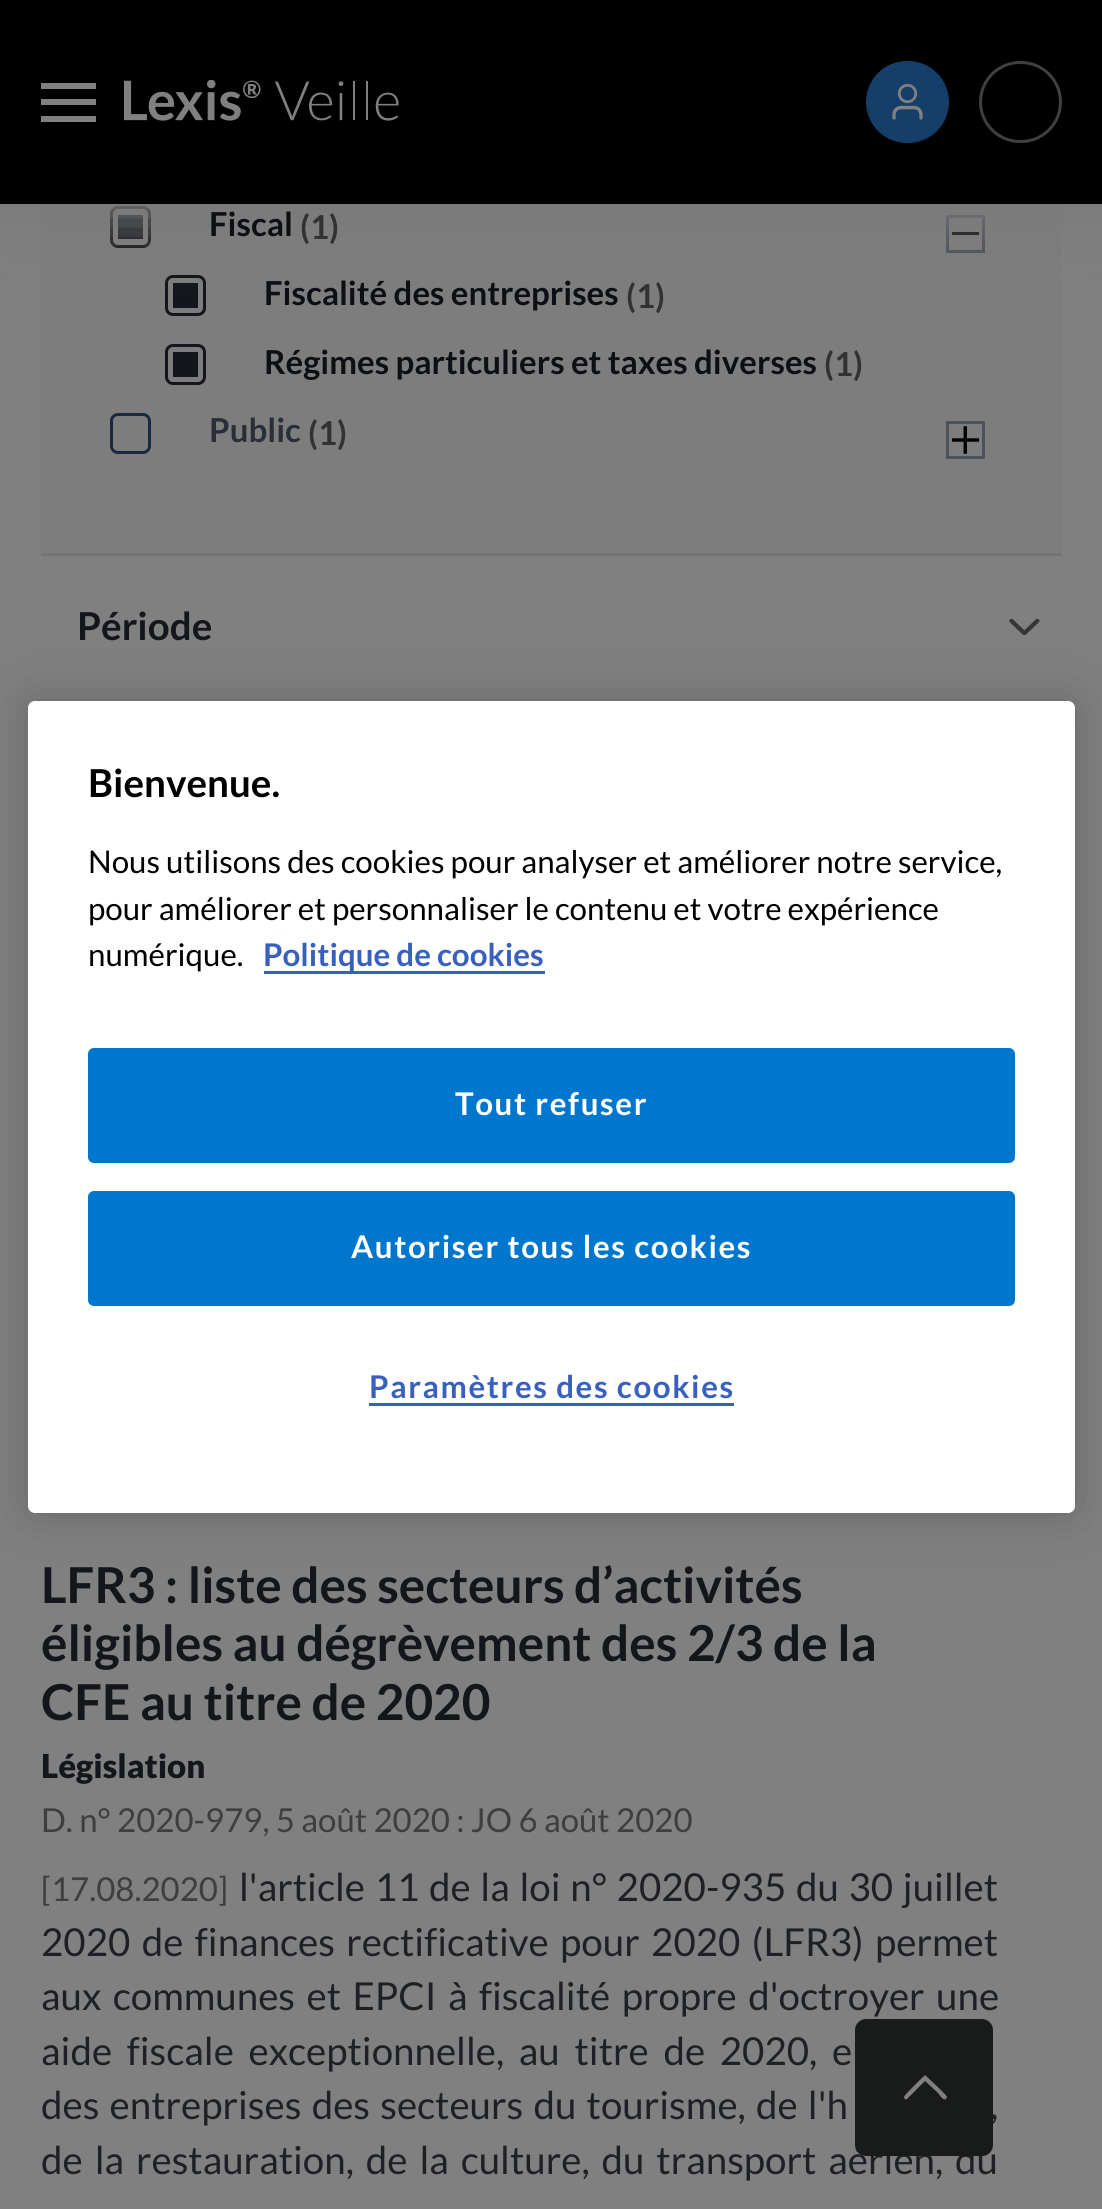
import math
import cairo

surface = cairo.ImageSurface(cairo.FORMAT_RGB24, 1102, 2209)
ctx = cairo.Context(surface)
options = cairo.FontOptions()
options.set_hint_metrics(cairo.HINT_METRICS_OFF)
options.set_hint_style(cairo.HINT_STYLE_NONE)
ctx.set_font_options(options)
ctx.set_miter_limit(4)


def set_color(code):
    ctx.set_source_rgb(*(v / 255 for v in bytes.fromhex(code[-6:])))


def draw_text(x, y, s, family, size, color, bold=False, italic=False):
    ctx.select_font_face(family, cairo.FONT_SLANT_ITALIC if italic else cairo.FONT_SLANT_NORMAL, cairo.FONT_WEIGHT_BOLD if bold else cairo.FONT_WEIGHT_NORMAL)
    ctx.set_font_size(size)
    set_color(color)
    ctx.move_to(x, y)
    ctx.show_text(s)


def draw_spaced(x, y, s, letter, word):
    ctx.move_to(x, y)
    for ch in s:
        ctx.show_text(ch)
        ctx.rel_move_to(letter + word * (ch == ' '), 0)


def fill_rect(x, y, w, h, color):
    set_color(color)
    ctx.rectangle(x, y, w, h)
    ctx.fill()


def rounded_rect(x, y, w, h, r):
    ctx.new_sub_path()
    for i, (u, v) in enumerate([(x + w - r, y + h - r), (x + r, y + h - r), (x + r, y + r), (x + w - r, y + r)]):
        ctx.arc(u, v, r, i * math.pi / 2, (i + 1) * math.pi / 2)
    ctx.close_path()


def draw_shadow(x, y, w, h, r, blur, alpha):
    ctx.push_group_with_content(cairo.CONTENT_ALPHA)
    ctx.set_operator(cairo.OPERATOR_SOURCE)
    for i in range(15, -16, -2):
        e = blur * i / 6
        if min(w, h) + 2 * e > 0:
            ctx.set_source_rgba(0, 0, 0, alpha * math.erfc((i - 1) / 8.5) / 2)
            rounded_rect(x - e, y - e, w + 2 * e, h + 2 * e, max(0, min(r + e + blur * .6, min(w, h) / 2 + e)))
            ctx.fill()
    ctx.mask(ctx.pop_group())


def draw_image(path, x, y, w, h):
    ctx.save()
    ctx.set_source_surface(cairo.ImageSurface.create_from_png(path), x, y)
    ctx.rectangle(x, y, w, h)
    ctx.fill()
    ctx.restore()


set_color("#808080")
ctx.paint()
fill_rect(41, 204, 1021, 349, "#7d7d7d")
rounded_rect(111.5, 207.5, 38, 39, 6.5)
set_color("#13161a")
ctx.set_line_width(3)
ctx.stroke()
fill_rect(118, 215, 25, 24, "#13161a")
fill_rect(952, 232, 27, 3, "#000000")
ctx.rectangle(947.5, 216.5, 36, 35)
set_color("#4b525c")
ctx.stroke()
rounded_rect(166.5, 276.5, 38, 38, 6.5)
set_color("#13161a")
ctx.stroke()
fill_rect(173, 283, 25, 25, "#13161a")
set_color("#7a7a7a")
draw_shadow(0, 19, 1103, 204, 0, 27.5, 1)
fill_rect(0, 0, 1102, 204, "#000000")
draw_image("assets/img1.png", 124, 80, 275, 41)
set_color("#153f68")
rounded_rect(866, 61, 83, 82, 41)
ctx.fill()
draw_image("assets/img2.png", 892, 83, 31, 37)
rounded_rect(980.5, 62.5, 80, 79, 39.5)
set_color("#404040")
ctx.stroke()
fill_rect(41, 83, 55, 6, "#808080")
fill_rect(41, 99, 55, 6, "#808080")
fill_rect(41, 116, 55, 6, "#808080")
draw_text(209, 236, "Fiscal", "Lato", 33, "#0c0f13", bold=True)
draw_text(300, 239, "(1)", "Lato", 33, "#323232", bold=True)
draw_text(264, 305, "Fiscalité des entreprises", "Lato", 33, "#0c0f13", bold=True)
draw_text(626, 308, "(1)", "Lato", 33, "#323232", bold=True)
rounded_rect(166.5, 345.5, 38, 38, 6.5)
set_color("#13161a")
ctx.stroke()
draw_text(264, 374, "Régimes particuliers et taxes diverses", "Lato", 33, "#0c0f13", bold=True)
draw_text(824, 376, "(1)", "Lato", 33, "#323232", bold=True)
fill_rect(173, 352, 25, 25, "#13161a")
rounded_rect(111.5, 414.5, 38, 38, 6.5)
set_color("#19283c")
ctx.stroke()
draw_text(209, 442, "Public", "Lato", 33, "#282f39", bold=True)
draw_text(308, 445, "(1)", "Lato", 33, "#323232", bold=True)
draw_image("assets/img3.png", 952, 426, 27, 28)
ctx.rectangle(947.5, 422.5, 36, 35)
set_color("#4b525c")
ctx.stroke()
fill_rect(41, 553, 1021, 3, "#737477")
draw_text(77, 640, "Période", "Lato", 38.5, "#13161a", bold=True)
draw_image("assets/img4.png", 1009, 619, 31, 16)
draw_text(41, 1603, "LFR3 : liste des secteurs d’activités", "Lato", 49.5, "#13161a", bold=True)
draw_text(41, 1661, "éligibles au dégrèvement des 2/3 de la", "Lato", 49.5, "#13161a", bold=True)
draw_text(41, 1720, "CFE au titre de 2020", "Lato", 49.5, "#13161a", bold=True)
draw_text(41, 1778, "Législation", "Lato Black", 33, "#13161a")
draw_text(41, 1832, "D. n° 2020-979, 5 août 2020 : JO 6 août 2020", "Lato", 33, "#3e3e3e")
draw_text(41, 1901, "[17.08.2020]", "Lato", 33, "#3e3e3e")
ctx.set_font_size(38.5)
set_color("#1d2024")
draw_spaced(239, 1901, "l'article 11 de la loi n° 2020-935 du 30 juillet", 0, 2.25)
draw_spaced(41, 1956, "2020 de finances rectificative pour 2020 (LFR3) permet", 0, 4)
draw_spaced(41, 2010, "aux communes et EPCI à fiscalité propre d'octroyer une", 0, 4)
draw_spaced(41, 2065, "aide fiscale exceptionnelle, au titre de 2020, e", 0, 7.25)
draw_spaced(41, 2119, "des entreprises des secteurs du tourisme, de l'h", 0, 2.75)
draw_spaced(990, 2119, ",", 0, 2.75)
draw_spaced(41, 2174, "de la restauration, de la culture, du transport aérien, du", 0, 4.5)
set_color("#000000")
draw_shadow(28, 701, 1047, 812, 7, 25, 0.2)
set_color("#ffffff")
rounded_rect(28, 701, 1047, 812, 7)
ctx.fill()
draw_text(88, 797, "Bienvenue.", "Lato", 38.5, "#000000", bold=True)
draw_text(88, 873, "Nous utilisons des cookies pour analyser et améliorer notre service,", "Lato", 31.3, "#000000")
draw_text(88, 920, "pour améliorer et personnaliser le contenu et votre expérience", "Lato", 31.3, "#000000")
draw_text(88, 966, "numérique.", "Lato", 31.3, "#000000")
fill_rect(264, 971, 281, 3, "#3860be")
draw_text(263, 966, "Politique de cookies", "Lato", 31.3, "#3860be", bold=True)
set_color("#0077cc")
rounded_rect(89.5, 1049.5, 924, 112, 4.5)
ctx.fill_preserve()
ctx.stroke()
set_color("#ffffff")
draw_spaced(455, 1115, "Tout refuser", 1.6, 0)
set_color("#0077cc")
rounded_rect(89.5, 1192.5, 924, 112, 4.5)
ctx.fill_preserve()
ctx.stroke()
set_color("#ffffff")
draw_spaced(351, 1258, "Autoriser tous les cookies", 1.6, 0)
set_color("#3860be")
draw_spaced(369, 1398, "Paramètres des cookies", 1.6, 0)
fill_rect(369, 1403, 365, 3, "#3860be")
set_color("#191a1a")
rounded_rect(855, 2019, 138, 137, 11)
ctx.fill()
set_color("#808080")
ctx.set_fill_rule(cairo.FILL_RULE_EVEN_ODD)
ctx.new_path()
ctx.move_to(947, 2097)
ctx.curve_to(947, 2095, 928, 2078, 925, 2075)
ctx.curve_to(923, 2077, 904, 2095, 904, 2097)
ctx.curve_to(904, 2099, 906, 2100, 907, 2099)
ctx.line_to(925, 2081)
ctx.line_to(938, 2093)
ctx.curve_to(939, 2094, 943, 2101, 946, 2099)
ctx.close_path()
ctx.fill()
surface.write_to_png("output.png")
